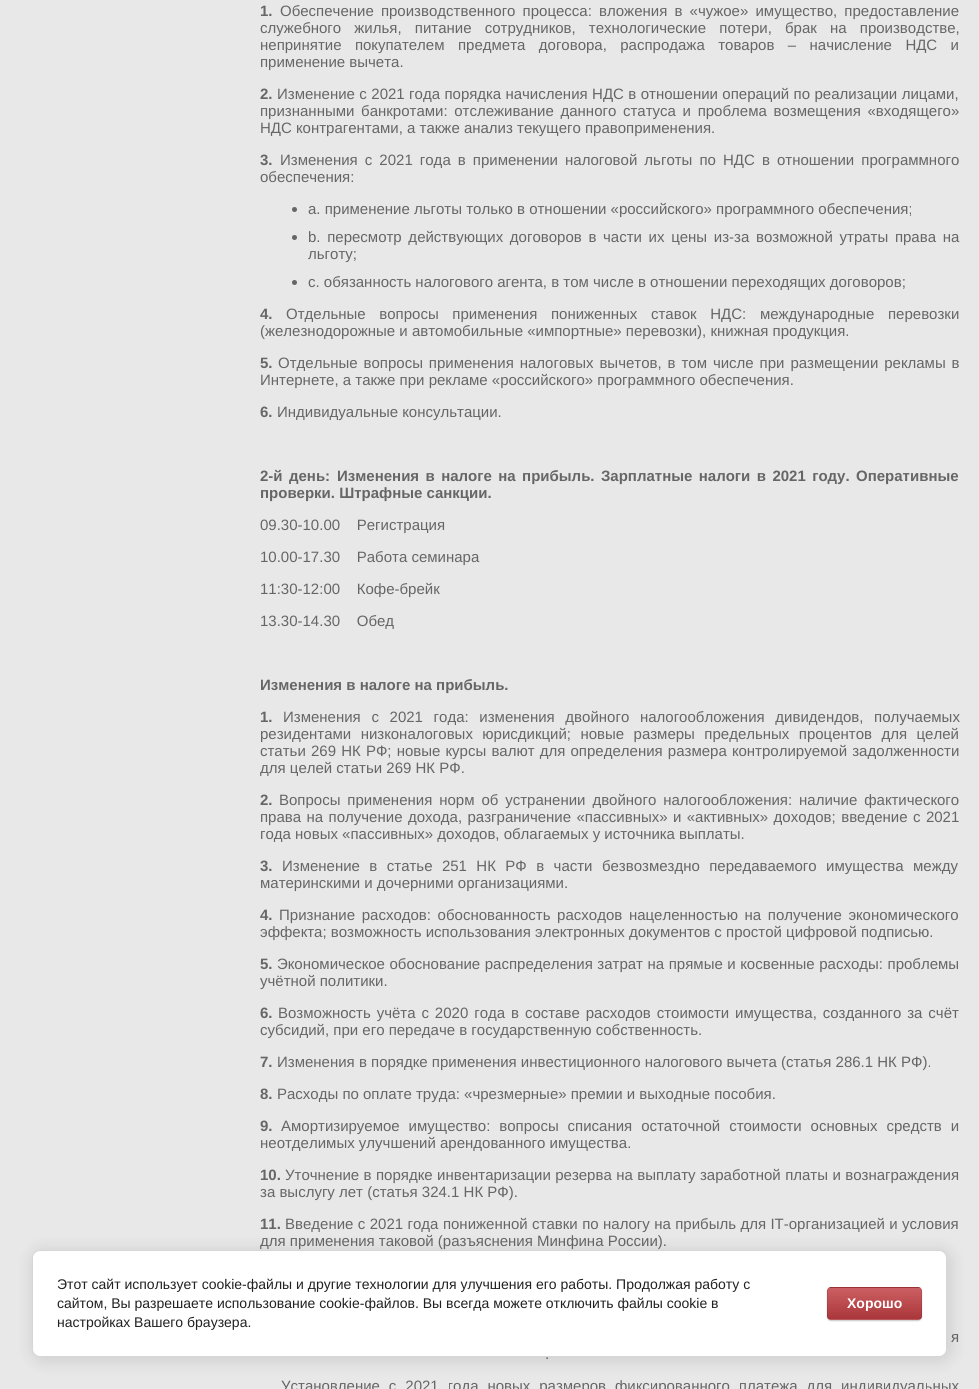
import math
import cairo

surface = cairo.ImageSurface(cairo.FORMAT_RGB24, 979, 1389)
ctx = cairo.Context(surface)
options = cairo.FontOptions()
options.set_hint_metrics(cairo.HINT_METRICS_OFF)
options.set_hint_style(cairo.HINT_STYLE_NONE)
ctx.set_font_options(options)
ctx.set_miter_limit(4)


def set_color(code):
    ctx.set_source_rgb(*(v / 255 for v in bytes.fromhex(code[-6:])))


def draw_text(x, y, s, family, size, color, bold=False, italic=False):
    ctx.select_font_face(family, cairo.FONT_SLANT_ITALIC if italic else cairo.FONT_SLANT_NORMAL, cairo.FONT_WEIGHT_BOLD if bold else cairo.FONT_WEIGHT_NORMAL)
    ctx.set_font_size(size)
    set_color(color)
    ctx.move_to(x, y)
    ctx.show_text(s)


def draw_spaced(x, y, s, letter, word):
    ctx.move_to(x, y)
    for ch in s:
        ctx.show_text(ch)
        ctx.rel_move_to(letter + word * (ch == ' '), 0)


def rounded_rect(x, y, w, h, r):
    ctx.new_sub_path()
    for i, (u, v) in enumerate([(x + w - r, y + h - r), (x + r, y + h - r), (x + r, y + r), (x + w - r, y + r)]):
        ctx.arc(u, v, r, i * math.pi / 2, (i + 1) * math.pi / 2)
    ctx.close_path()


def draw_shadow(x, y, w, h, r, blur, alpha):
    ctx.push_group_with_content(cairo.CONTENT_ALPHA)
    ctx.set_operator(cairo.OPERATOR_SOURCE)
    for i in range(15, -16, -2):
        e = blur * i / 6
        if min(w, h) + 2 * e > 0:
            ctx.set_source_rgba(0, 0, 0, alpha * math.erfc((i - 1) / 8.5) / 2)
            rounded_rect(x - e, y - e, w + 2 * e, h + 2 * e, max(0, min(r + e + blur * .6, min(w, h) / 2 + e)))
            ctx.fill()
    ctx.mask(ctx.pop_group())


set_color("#e8e8e8")
ctx.paint()
draw_text(260, 16, "1.", "Liberation Sans", 15, "#666666", bold=True)
ctx.select_font_face("Liberation Sans")
draw_spaced(280, 16, "Обеспечение производственного процесса: вложения в «чужое» имущество, предоставление", 0, 3)
draw_spaced(260, 33, "служебного жилья, питание сотрудников, технологические потери, брак на производстве,", 0, 9)
draw_spaced(260, 50, "непринятие покупателем предмета договора, распродажа товаров – начисление НДС и", 0, 9.25)
draw_text(260, 67, "применение вычета.", "Liberation Sans", 15, "#666666")
draw_text(260, 99, "2.", "Liberation Sans", 15, "#666666", bold=True)
ctx.select_font_face("Liberation Sans")
draw_spaced(277, 99, "Изменение с 2021 года порядка начисления НДС в отношении операций по реализации лицами,", 0, 0.25)
draw_spaced(260, 116, "признанными банкротами: отслеживание данного статуса и проблема возмещения «входящего»", 0, 2.5)
draw_text(260, 133, "НДС контрагентами, а также анализ текущего правоприменения.", "Liberation Sans", 15, "#666666")
draw_text(260, 165, "3.", "Liberation Sans", 15, "#666666", bold=True)
ctx.select_font_face("Liberation Sans")
draw_spaced(280, 165, "Изменения с 2021 года в применении налоговой льготы по НДС в отношении программного", 0, 2.9)
draw_text(260, 182, "обеспечения:", "Liberation Sans", 15, "#666666")
ctx.new_path()
ctx.arc(294.5, 209.5, 2.5, 0, 2 * math.pi)
ctx.fill()
draw_text(308, 214, "a. применение льготы только в отношении «российского» программного обеспечения;", "Liberation Sans", 15, "#666666")
ctx.new_path()
ctx.arc(294.5, 237.5, 2.5, 0, 2 * math.pi)
ctx.fill()
draw_spaced(308, 242, "b. пересмотр действующих договоров в части их цены из-за возможной утраты права на", 0, 2.5)
draw_text(308, 259, "льготу;", "Liberation Sans", 15, "#666666")
ctx.new_path()
ctx.arc(294.5, 282.5, 2.5, 0, 2 * math.pi)
ctx.fill()
draw_text(308, 287, "c. обязанность налогового агента, в том числе в отношении переходящих договоров;", "Liberation Sans", 15, "#666666")
draw_text(260, 319, "4.", "Liberation Sans", 15, "#666666", bold=True)
ctx.select_font_face("Liberation Sans")
draw_spaced(286, 319, "Отдельные вопросы применения пониженных ставок НДС: международные перевозки", 0, 9.5)
draw_text(260, 336, "(железнодорожные и автомобильные «импортные» перевозки), книжная продукция.", "Liberation Sans", 15, "#666666")
draw_text(260, 368, "5.", "Liberation Sans", 15, "#666666", bold=True)
ctx.select_font_face("Liberation Sans")
draw_spaced(278, 368, "Отдельные вопросы применения налоговых вычетов, в том числе при размещении рекламы в", 0, 1.75)
draw_text(260, 385, "Интернете, а также при рекламе «российского» программного обеспечения.", "Liberation Sans", 15, "#666666")
draw_text(260, 417, "6.", "Liberation Sans", 15, "#666666", bold=True)
draw_text(277, 417, "Индивидуальные консультации.", "Liberation Sans", 15, "#666666")
ctx.select_font_face("Liberation Sans", cairo.FONT_SLANT_NORMAL, cairo.FONT_WEIGHT_BOLD)
draw_spaced(260, 481, "2-й день", 0, 2.25)
draw_text(325, 481, ":", "Liberation Sans", 15, "#666666", bold=True)
draw_spaced(337, 481, "Изменения в налоге на прибыль. Зарплатные налоги в 2021 году. Оперативные", 0, 2.25)
draw_text(260, 498, "проверки. Штрафные санкции.", "Liberation Sans", 15, "#666666", bold=True)
draw_text(260, 530, "09.30-10.00    Регистрация", "Liberation Sans", 15, "#666666")
draw_text(260, 562, "10.00-17.30    Работа семинара", "Liberation Sans", 15, "#666666")
draw_text(260, 594, "11:30-12:00    Кофе-брейк", "Liberation Sans", 15, "#666666")
draw_text(260, 626, "13.30-14.30    Обед", "Liberation Sans", 15, "#666666")
draw_text(260, 690, "Изменения в налоге на прибыль.", "Liberation Sans", 15, "#666666", bold=True)
draw_text(260, 722, "1.", "Liberation Sans", 15, "#666666", bold=True)
ctx.select_font_face("Liberation Sans")
draw_spaced(283, 722, "Изменения с 2021 года: изменения двойного налогообложения дивидендов, получаемых", 0, 6.5)
draw_spaced(260, 739, "резидентами низконалоговых юрисдикций; новые размеры предельных процентов для целей", 0, 5.25)
draw_spaced(260, 756, "статьи 269 НК РФ; новые курсы валют для определения размера контролируемой задолженности", 0, 1)
draw_text(260, 773, "для целей статьи 269 НК РФ.", "Liberation Sans", 15, "#666666")
draw_text(260, 805, "2.", "Liberation Sans", 15, "#666666", bold=True)
ctx.select_font_face("Liberation Sans")
draw_spaced(279, 805, "Вопросы применения норм об устранении двойного налогообложения: наличие фактического", 0, 2.75)
draw_spaced(260, 822, "права на получение дохода, разграничение «пассивных» и «активных» доходов; введение с 2021", 0, 1.25)
draw_text(260, 839, "года новых «пассивных» доходов, облагаемых у источника выплаты.", "Liberation Sans", 15, "#666666")
draw_text(260, 871, "3.", "Liberation Sans", 15, "#666666", bold=True)
ctx.select_font_face("Liberation Sans")
draw_spaced(282, 871, "Изменение в статье 251 НК РФ в части безвозмездно передаваемого имущества между", 0, 5.25)
draw_text(260, 888, "материнскими и дочерними организациями.", "Liberation Sans", 15, "#666666")
draw_text(260, 920, "4.", "Liberation Sans", 15, "#666666", bold=True)
ctx.select_font_face("Liberation Sans")
draw_spaced(279, 920, "Признание расходов: обоснованность расходов нацеленностью на получение экономического", 0, 2.5)
draw_text(260, 937, "эффекта; возможность использования электронных документов с простой цифровой подписью.", "Liberation Sans", 15, "#666666")
draw_text(260, 969, "5.", "Liberation Sans", 15, "#666666", bold=True)
ctx.select_font_face("Liberation Sans")
draw_spaced(277, 969, "Экономическое обоснование распределения затрат на прямые и косвенные расходы: проблемы", 0, 0.4)
draw_text(260, 986, "учётной политики.", "Liberation Sans", 15, "#666666")
draw_text(260, 1018, "6.", "Liberation Sans", 15, "#666666", bold=True)
ctx.select_font_face("Liberation Sans")
draw_spaced(278, 1018, "Возможность учёта с 2020 года в составе расходов стоимости имущества, созданного за счёт", 0, 1.75)
draw_text(260, 1035, "субсидий, при его передаче в государственную собственность.", "Liberation Sans", 15, "#666666")
draw_text(260, 1067, "7.", "Liberation Sans", 15, "#666666", bold=True)
draw_text(277, 1067, "Изменения в порядке применения инвестиционного налогового вычета (статья 286.1 НК РФ).", "Liberation Sans", 15, "#666666")
draw_text(260, 1099, "8.", "Liberation Sans", 15, "#666666", bold=True)
draw_text(277, 1099, "Расходы по оплате труда: «чрезмерные» премии и выходные пособия.", "Liberation Sans", 15, "#666666")
draw_text(260, 1131, "9.", "Liberation Sans", 15, "#666666", bold=True)
ctx.select_font_face("Liberation Sans")
draw_spaced(281, 1131, "Амортизируемое имущество: вопросы списания остаточной стоимости основных средств и", 0, 4.75)
draw_text(260, 1148, "неотделимых улучшений арендованного имущества.", "Liberation Sans", 15, "#666666")
draw_text(260, 1180, "10.", "Liberation Sans", 15, "#666666", bold=True)
ctx.select_font_face("Liberation Sans")
draw_spaced(285, 1180, "Уточнение в порядке инвентаризации резерва на выплату заработной платы и вознаграждения", 0, 0.25)
draw_text(260, 1197, "за выслугу лет (статья 324.1 НК РФ).", "Liberation Sans", 15, "#666666")
draw_text(260, 1229, "11.", "Liberation Sans", 15, "#666666", bold=True)
ctx.select_font_face("Liberation Sans")
draw_spaced(285, 1229, "Введение с 2021 года пониженной ставки по налогу на прибыль для IT-организацией и условия", 0, 0.25)
draw_text(260, 1246, "для применения таковой (разъяснения Минфина России).", "Liberation Sans", 15, "#666666")
draw_spaced(951, 1342, "я", 0, 4)
draw_text(545, 1359, ".", "Liberation Sans", 15, "#666666")
draw_spaced(281, 1391, "Установление с 2021 года новых размеров фиксированного платежа для индивидуальных", 0, 4.75)
set_color("#000000")
draw_shadow(34, 1252, 915, 107, 8, 9, 0.14)
set_color("#ffffff")
rounded_rect(32.5, 1250.5, 914, 106, 7.5)
ctx.fill_preserve()
set_color("#d6d6d6")
ctx.set_line_width(1)
ctx.stroke()
draw_text(57, 1289, "Этот сайт использует cookie-файлы и другие технологии для улучшения его работы. Продолжая работу с", "Liberation Sans", 14, "#212121")
draw_text(57, 1308, "сайтом, Вы разрешаете использование cookie-файлов. Вы всегда можете отключить файлы cookie в", "Liberation Sans", 14, "#212121")
draw_text(57, 1327, "настройках Вашего браузера.", "Liberation Sans", 14, "#212121")
set_color("#000000")
draw_shadow(827, 1288, 95, 33, 4, 0.5, 0.2)
ctx.save()
rounded_rect(827, 1287, 95, 33, 4)
ctx.clip()
gradient = cairo.LinearGradient(875, 1257, 875, 1288)
gradient.add_color_stop_rgba(0, 0.8, 0.373, 0.388, 1)
gradient.add_color_stop_rgba(1, 0.663, 0.212, 0.227, 1)
ctx.set_source(gradient)
ctx.rectangle(827, 1287, 95, 1)
ctx.fill()
gradient = cairo.LinearGradient(875, 1288, 875, 1319)
gradient.add_color_stop_rgba(0, 0.8, 0.373, 0.388, 1)
gradient.add_color_stop_rgba(1, 0.663, 0.212, 0.227, 1)
ctx.set_source(gradient)
ctx.rectangle(827, 1288, 95, 31)
ctx.fill()
gradient = cairo.LinearGradient(875, 1319, 875, 1350)
gradient.add_color_stop_rgba(0, 0.8, 0.373, 0.388, 1)
gradient.add_color_stop_rgba(1, 0.663, 0.212, 0.227, 1)
ctx.set_source(gradient)
ctx.rectangle(827, 1319, 95, 1)
ctx.fill()
ctx.restore()
rounded_rect(827.5, 1287.5, 94, 32, 3.5)
ctx.set_source_rgba(0, 0, 0, 0.1)
ctx.stroke()
draw_text(847, 1308, "Хорошо", "Liberation Sans", 14, "#ffffff", bold=True)
surface.write_to_png("output.png")
